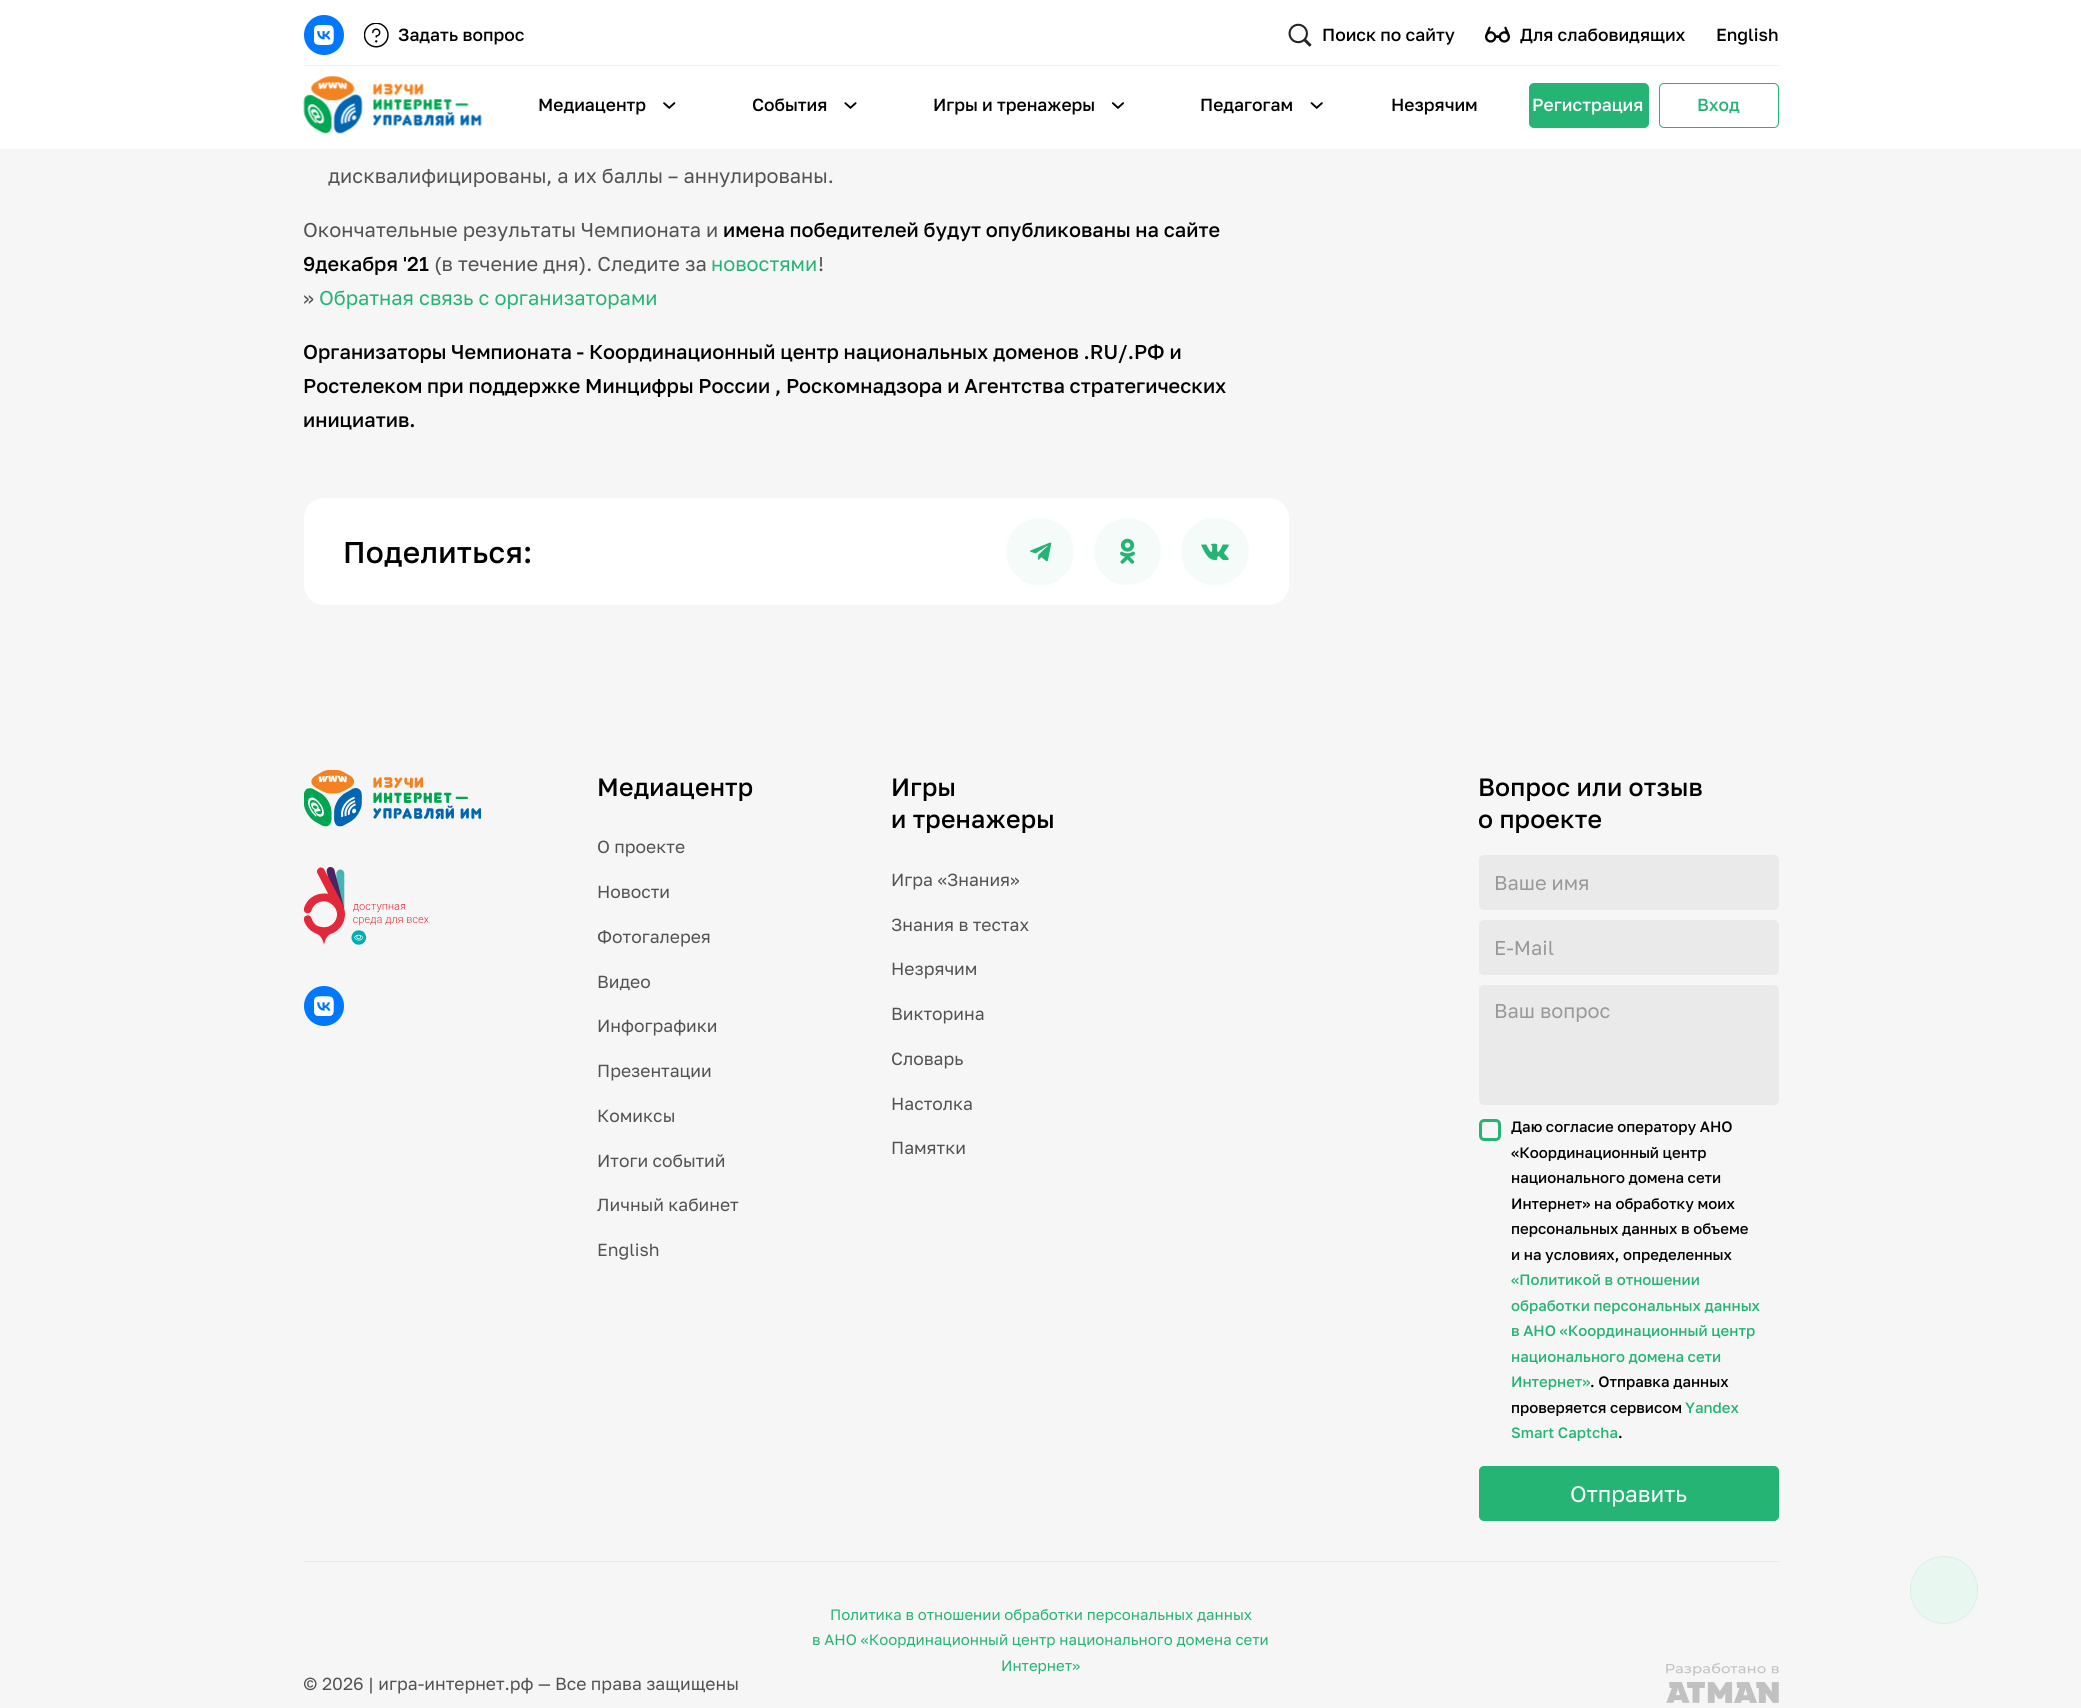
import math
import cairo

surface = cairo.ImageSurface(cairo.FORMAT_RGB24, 2081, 1708)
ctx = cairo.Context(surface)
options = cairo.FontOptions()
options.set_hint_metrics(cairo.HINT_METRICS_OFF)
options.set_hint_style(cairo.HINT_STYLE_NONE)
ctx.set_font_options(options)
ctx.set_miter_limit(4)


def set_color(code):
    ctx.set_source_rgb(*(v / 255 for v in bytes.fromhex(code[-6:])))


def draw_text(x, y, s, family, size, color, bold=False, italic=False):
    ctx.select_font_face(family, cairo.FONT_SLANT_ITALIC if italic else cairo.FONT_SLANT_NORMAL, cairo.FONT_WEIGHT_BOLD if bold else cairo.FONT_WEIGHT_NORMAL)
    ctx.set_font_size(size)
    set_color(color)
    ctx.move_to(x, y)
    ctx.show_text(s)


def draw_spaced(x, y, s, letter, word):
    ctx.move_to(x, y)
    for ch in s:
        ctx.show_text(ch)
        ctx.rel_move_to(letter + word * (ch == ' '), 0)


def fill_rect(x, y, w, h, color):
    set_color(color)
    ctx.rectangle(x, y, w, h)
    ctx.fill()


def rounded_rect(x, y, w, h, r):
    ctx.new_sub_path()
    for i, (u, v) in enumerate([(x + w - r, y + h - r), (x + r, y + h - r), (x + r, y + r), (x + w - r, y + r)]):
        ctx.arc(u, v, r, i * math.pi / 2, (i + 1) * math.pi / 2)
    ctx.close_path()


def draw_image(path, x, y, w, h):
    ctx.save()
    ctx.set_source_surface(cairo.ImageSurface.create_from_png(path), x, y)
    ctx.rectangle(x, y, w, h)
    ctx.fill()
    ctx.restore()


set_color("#f6f6f6")
ctx.paint()
fill_rect(0, 0, 2081, 149, "#ffffff")
fill_rect(304, 65, 1475, 1, "#f2f2f2")
set_color("#0077ff")
ctx.arc(324, 35, 20, 0, 2 * math.pi)
ctx.fill()
draw_image("assets/img1.png", 314, 25, 20, 20)
draw_image("assets/img2.png", 364, 23, 25, 25)
draw_text(398, 41, "Задать вопрос", "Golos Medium", 17.5, "#000000")
draw_image("assets/img3.png", 1288, 23, 24, 24)
draw_text(1322, 41, "Поиск по сайту", "Golos Medium", 17.5, "#000000")
draw_image("assets/img4.png", 1485, 26, 25, 17)
draw_text(1520, 41, "Для слабовидящих", "Golos Medium", 17.5, "#000000")
draw_text(1716, 41, "English", "Golos Medium", 17.5, "#000000")
draw_image("assets/img5.png", 303, 76, 179, 58)
draw_text(538, 111, "Медиацентр", "Golos Medium", 17.5, "#000000")
draw_image("assets/img6.png", 663, 102, 13, 7)
draw_text(752, 111, "События", "Golos Medium", 17.5, "#000000")
draw_image("assets/img7.png", 844, 102, 13, 7)
draw_text(933, 111, "Игры и тренажеры", "Golos Medium", 17.5, "#000000")
draw_image("assets/img8.png", 1111, 102, 13, 7)
draw_text(1200, 111, "Педагогам", "Golos Medium", 17.5, "#000000")
draw_image("assets/img9.png", 1310, 102, 13, 7)
draw_text(1391, 111, "Незрячим", "Golos Medium", 17.5, "#000000")
set_color("#25b474")
rounded_rect(1529.5, 83.5, 119, 44, 4.5)
ctx.fill_preserve()
ctx.set_line_width(1)
ctx.stroke()
draw_text(1532, 111, "Регистрация", "Golos Medium", 17.5, "#ffffff")
rounded_rect(1659.5, 83.5, 119, 44, 4.5)
set_color("#25b474")
ctx.stroke()
draw_text(1697, 111, "Вход", "Golos Medium", 17.5, "#25b474")
draw_text(328, 183, "дисквалифицированы, а их баллы – аннулированы.", "Golos", 20, "#525252")
draw_text(303, 237, "Окончательные результаты Чемпионата и", "Golos", 20, "#525252")
draw_text(723, 237, "имена победителей будут опубликованы на сайте", "Golos Medium", 20, "#000000")
draw_text(303, 271, "9декабря '21", "Golos Medium", 20, "#000000")
draw_text(434, 271, "(в течение дня). Следите за", "Golos", 20, "#525252")
draw_text(711, 271, "новостями", "Golos", 20, "#25b474")
draw_text(818, 271, "!", "Golos", 20, "#525252")
draw_text(303, 305, "»", "Golos", 20, "#525252")
draw_text(319, 305, "Обратная связь с организаторами", "Golos", 20, "#25b474")
draw_text(303, 359, "Организаторы Чемпионата - Координационный центр национальных доменов .RU/.РФ и", "Golos Medium", 20, "#000000")
draw_text(303, 393, "Ростелеком при поддержке Минцифры России , Роскомнадзора и Агентства стратегических", "Golos Medium", 20, "#000000")
draw_text(303, 427, "инициатив.", "Golos Medium", 20, "#000000")
set_color("#ffffff")
rounded_rect(304, 498, 985, 107, 20)
ctx.fill()
ctx.set_font_size(30)
set_color("#000000")
draw_spaced(343, 563, "Поделиться:", 0.25, 0)
set_color("#f4fbf8")
rounded_rect(1006, 518, 68, 67, 33.5)
ctx.fill()
draw_image("assets/img10.png", 1030, 542, 22, 20)
ctx.arc(1127.5, 551.5, 33.5, 0, 2 * math.pi)
ctx.fill()
draw_image("assets/img11.png", 1120, 538, 15, 26)
rounded_rect(1181, 518, 68, 67, 33.5)
ctx.fill()
draw_image("assets/img12.png", 1201, 543, 28, 17)
draw_image("assets/img13.png", 304, 770, 177, 57)
draw_image("assets/img14.png", 304, 867, 125, 78)
set_color("#0077ff")
ctx.arc(324, 1006, 20, 0, 2 * math.pi)
ctx.fill()
draw_image("assets/img15.png", 314, 996, 20, 20)
ctx.set_font_size(25)
set_color("#000000")
draw_spaced(597, 796, "Медиацентр", 0.2, 0)
draw_text(597, 853, "О проекте", "Golos", 17.5, "#525252")
draw_text(597, 898, "Новости", "Golos", 17.5, "#525252")
draw_text(597, 943, "Фотогалерея", "Golos", 17.5, "#525252")
draw_text(597, 988, "Видео", "Golos", 17.5, "#525252")
draw_text(597, 1032, "Инфографики", "Golos", 17.5, "#525252")
draw_text(597, 1077, "Презентации", "Golos", 17.5, "#525252")
draw_text(597, 1122, "Комиксы", "Golos", 17.5, "#525252")
draw_text(597, 1167, "Итоги событий", "Golos", 17.5, "#525252")
draw_text(597, 1211, "Личный кабинет", "Golos", 17.5, "#525252")
draw_text(597, 1256, "English", "Golos", 17.5, "#525252")
ctx.select_font_face("Golos Medium")
ctx.set_font_size(25)
set_color("#000000")
draw_spaced(891, 796, "Игры", 0.2, 0)
draw_spaced(891, 828, "и тренажеры", 0.2, 0)
draw_text(891, 886, "Игра «Знания»", "Golos", 17.5, "#525252")
draw_text(891, 931, "Знания в тестах", "Golos", 17.5, "#525252")
draw_text(891, 975, "Незрячим", "Golos", 17.5, "#525252")
draw_text(891, 1020, "Викторина", "Golos", 17.5, "#525252")
draw_text(891, 1065, "Словарь", "Golos", 17.5, "#525252")
draw_text(891, 1110, "Настолка", "Golos", 17.5, "#525252")
draw_text(891, 1154, "Памятки", "Golos", 17.5, "#525252")
ctx.select_font_face("Golos Medium")
ctx.set_font_size(25)
set_color("#000000")
draw_spaced(1478, 796, "Вопрос или отзыв", 0.2, 0)
draw_spaced(1478, 828, "о проекте", 0.2, 0)
set_color("#eaeaea")
rounded_rect(1479, 855, 300, 55, 5)
ctx.fill()
draw_text(1494, 890, "Ваше имя", "Golos", 20, "#999999")
set_color("#eaeaea")
rounded_rect(1479, 920, 300, 55, 5)
ctx.fill()
draw_text(1494, 955, "E-Mail", "Golos", 20, "#999999")
set_color("#eaeaea")
rounded_rect(1479, 985, 300, 120, 5)
ctx.fill()
draw_text(1494, 1018, "Ваш вопрос", "Golos", 20, "#999999")
rounded_rect(1480.5, 1120.5, 19, 19, 3.5)
set_color("#25b474")
ctx.set_line_width(3)
ctx.stroke()
draw_text(1511, 1132, "Даю согласие оператору АНО", "Golos Medium", 15, "#000000")
draw_text(1511, 1158, "«Координационный центр", "Golos Medium", 15, "#000000")
draw_text(1511, 1183, "национального домена сети", "Golos Medium", 15, "#000000")
draw_text(1511, 1209, "Интернет» на обработку моих", "Golos Medium", 15, "#000000")
draw_text(1511, 1234, "персональных данных в объеме", "Golos Medium", 15, "#000000")
draw_text(1511, 1260, "и на условиях, определенных", "Golos Medium", 15, "#000000")
draw_text(1511, 1285, "«Политикой в отношении", "Golos Medium", 15, "#25b474")
draw_text(1511, 1311, "обработки персональных данных", "Golos Medium", 15, "#25b474")
draw_text(1511, 1336, "в АНО «Координационный центр", "Golos Medium", 15, "#25b474")
draw_text(1511, 1362, "национального домена сети", "Golos Medium", 15, "#25b474")
draw_text(1511, 1387, "Интернет»", "Golos Medium", 15, "#25b474")
draw_text(1590, 1387, ". Отправка данных", "Golos Medium", 15, "#000000")
draw_text(1511, 1413, "проверяется сервисом", "Golos Medium", 15, "#000000")
draw_text(1685, 1413, "Yandex", "Golos Medium", 15, "#25b474")
draw_text(1511, 1438, "Smart Captcha", "Golos Medium", 15, "#25b474")
draw_text(1618, 1438, ".", "Golos Medium", 15, "#000000")
set_color("#25b474")
rounded_rect(1479.5, 1466.5, 299, 54, 4.5)
ctx.fill_preserve()
ctx.set_line_width(1)
ctx.stroke()
draw_text(1570, 1502, "Отправить", "Golos", 22.5, "#ffffff")
fill_rect(304, 1561, 1475, 1, "#eaeaea")
draw_text(830, 1620, "Политика в отношении обработки персональных данных", "Golos", 15, "#25b474")
draw_text(812, 1645, "в АНО «Координационный центр национального домена сети", "Golos", 15, "#25b474")
draw_text(1001, 1671, "Интернет»", "Golos", 15, "#25b474")
draw_text(303, 1690, "© 2026 | игра-интернет.рф — Все права защищены", "Golos", 17.5, "#525252")
draw_image("assets/img16.png", 1666, 1663, 113, 40)
set_color("#e9f7f1")
ctx.arc(1944, 1590, 34, 0, 2 * math.pi)
ctx.fill()
ctx.arc(1944, 1590, 33.5, 0, 2 * math.pi)
ctx.set_source_rgba(0.145, 0.706, 0.455, 0.1)
ctx.stroke()
surface.write_to_png("output.png")
